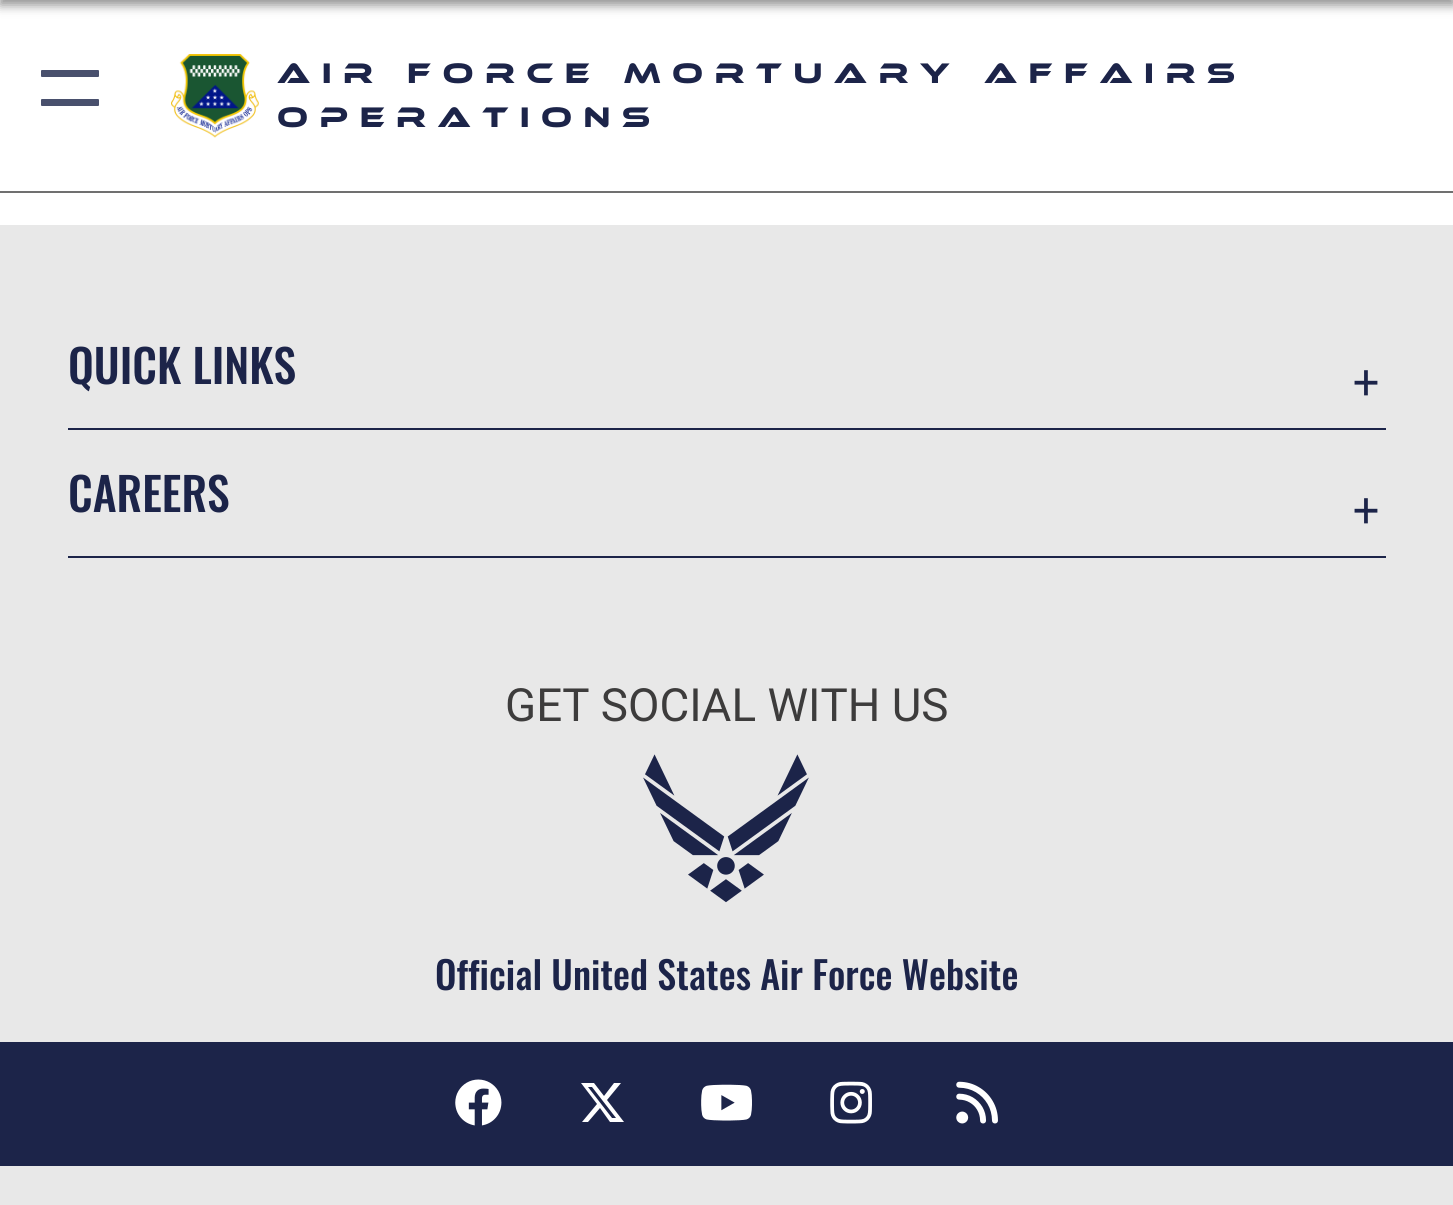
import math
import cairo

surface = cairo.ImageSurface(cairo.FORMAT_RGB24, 1453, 1205)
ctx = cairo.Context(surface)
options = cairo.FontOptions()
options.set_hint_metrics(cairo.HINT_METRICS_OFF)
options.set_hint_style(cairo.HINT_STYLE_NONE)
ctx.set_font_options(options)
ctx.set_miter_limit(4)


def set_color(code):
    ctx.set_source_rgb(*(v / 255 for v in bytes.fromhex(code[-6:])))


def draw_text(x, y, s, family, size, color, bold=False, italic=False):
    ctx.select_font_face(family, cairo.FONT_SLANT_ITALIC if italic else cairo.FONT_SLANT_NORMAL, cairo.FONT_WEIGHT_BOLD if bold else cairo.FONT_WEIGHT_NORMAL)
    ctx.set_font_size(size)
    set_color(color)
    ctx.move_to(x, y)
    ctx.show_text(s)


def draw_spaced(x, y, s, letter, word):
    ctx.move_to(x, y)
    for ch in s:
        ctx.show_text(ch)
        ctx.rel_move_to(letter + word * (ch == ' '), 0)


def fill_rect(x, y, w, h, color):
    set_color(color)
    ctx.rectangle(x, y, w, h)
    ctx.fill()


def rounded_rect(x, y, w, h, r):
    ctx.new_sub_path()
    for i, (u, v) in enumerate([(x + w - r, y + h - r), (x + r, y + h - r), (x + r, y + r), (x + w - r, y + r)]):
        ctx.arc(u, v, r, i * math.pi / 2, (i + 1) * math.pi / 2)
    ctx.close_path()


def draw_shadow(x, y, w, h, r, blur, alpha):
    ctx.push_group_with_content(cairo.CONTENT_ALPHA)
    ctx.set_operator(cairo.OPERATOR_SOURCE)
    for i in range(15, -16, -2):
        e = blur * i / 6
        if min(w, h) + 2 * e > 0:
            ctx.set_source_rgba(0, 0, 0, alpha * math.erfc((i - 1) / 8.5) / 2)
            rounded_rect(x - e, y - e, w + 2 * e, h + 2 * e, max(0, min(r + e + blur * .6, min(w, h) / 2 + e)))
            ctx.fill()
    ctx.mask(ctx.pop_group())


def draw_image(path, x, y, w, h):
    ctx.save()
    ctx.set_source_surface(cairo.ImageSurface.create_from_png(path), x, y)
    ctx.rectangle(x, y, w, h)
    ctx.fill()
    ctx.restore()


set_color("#ffffff")
ctx.paint()
set_color("#1a1a1a")
draw_shadow(0, -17, 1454, 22, 0, 5.5, 0.5)
fill_rect(0, 191, 1453, 2, "#707070")
set_color("#49506d")
rounded_rect(41, 70, 58, 7, 1)
ctx.fill()
rounded_rect(41, 99, 58, 7, 1)
ctx.fill()
draw_image("assets/img1.png", 171, 54, 88, 84)
ctx.select_font_face("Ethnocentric")
ctx.set_font_size(29.25)
set_color("#1c2449")
draw_spaced(277, 83, "Air Force Mortuary Affairs", 11.45, 0)
draw_spaced(277, 127, "Operations", 11.45, 0)
fill_rect(0, 225, 1453, 980, "#e8e8e8")
fill_rect(68, 428, 1318, 2, "#1c2449")
draw_text(68, 384, "QUICK LINKS", "Oswald Medium", 45.75, "#1c2449")
draw_text(1353, 411, "+", "Oswald Light", 68, "#1c2449")
fill_rect(68, 556, 1318, 2, "#1c2449")
draw_text(68, 512, "CAREERS", "Oswald Medium", 45.75, "#1c2449")
draw_text(1353, 539, "+", "Oswald Light", 68, "#1c2449")
draw_text(505, 721, "GET SOCIAL WITH US", "Roboto", 45.75, "#3d3c3c")
draw_image("assets/img2.png", 643, 754, 166, 149)
draw_text(435, 990, "Official United States Air Force Website", "Oswald Medium", 38.1, "#1c2449")
fill_rect(0, 1042, 1453, 124, "#1c2449")
draw_image("assets/img3.png", 455, 1079, 47, 47)
set_color("#ffffff")
ctx.new_path()
ctx.move_to(614, 1083)
ctx.line_to(621, 1083)
ctx.line_to(607, 1100)
ctx.line_to(624, 1122)
ctx.line_to(610, 1122)
ctx.line_to(600, 1108)
ctx.line_to(588, 1122)
ctx.line_to(582, 1122)
ctx.line_to(597, 1104)
ctx.line_to(581, 1083)
ctx.line_to(594, 1083)
ctx.line_to(604, 1096)
ctx.close_path()
ctx.move_to(612, 1118)
ctx.line_to(616, 1118)
ctx.line_to(592, 1087)
ctx.line_to(588, 1087)
ctx.close_path()
ctx.fill()
draw_image("assets/img4.png", 701, 1084, 51, 37)
draw_image("assets/img5.png", 830, 1081, 42, 43)
draw_image("assets/img6.png", 956, 1081, 42, 43)
surface.write_to_png("output.png")
